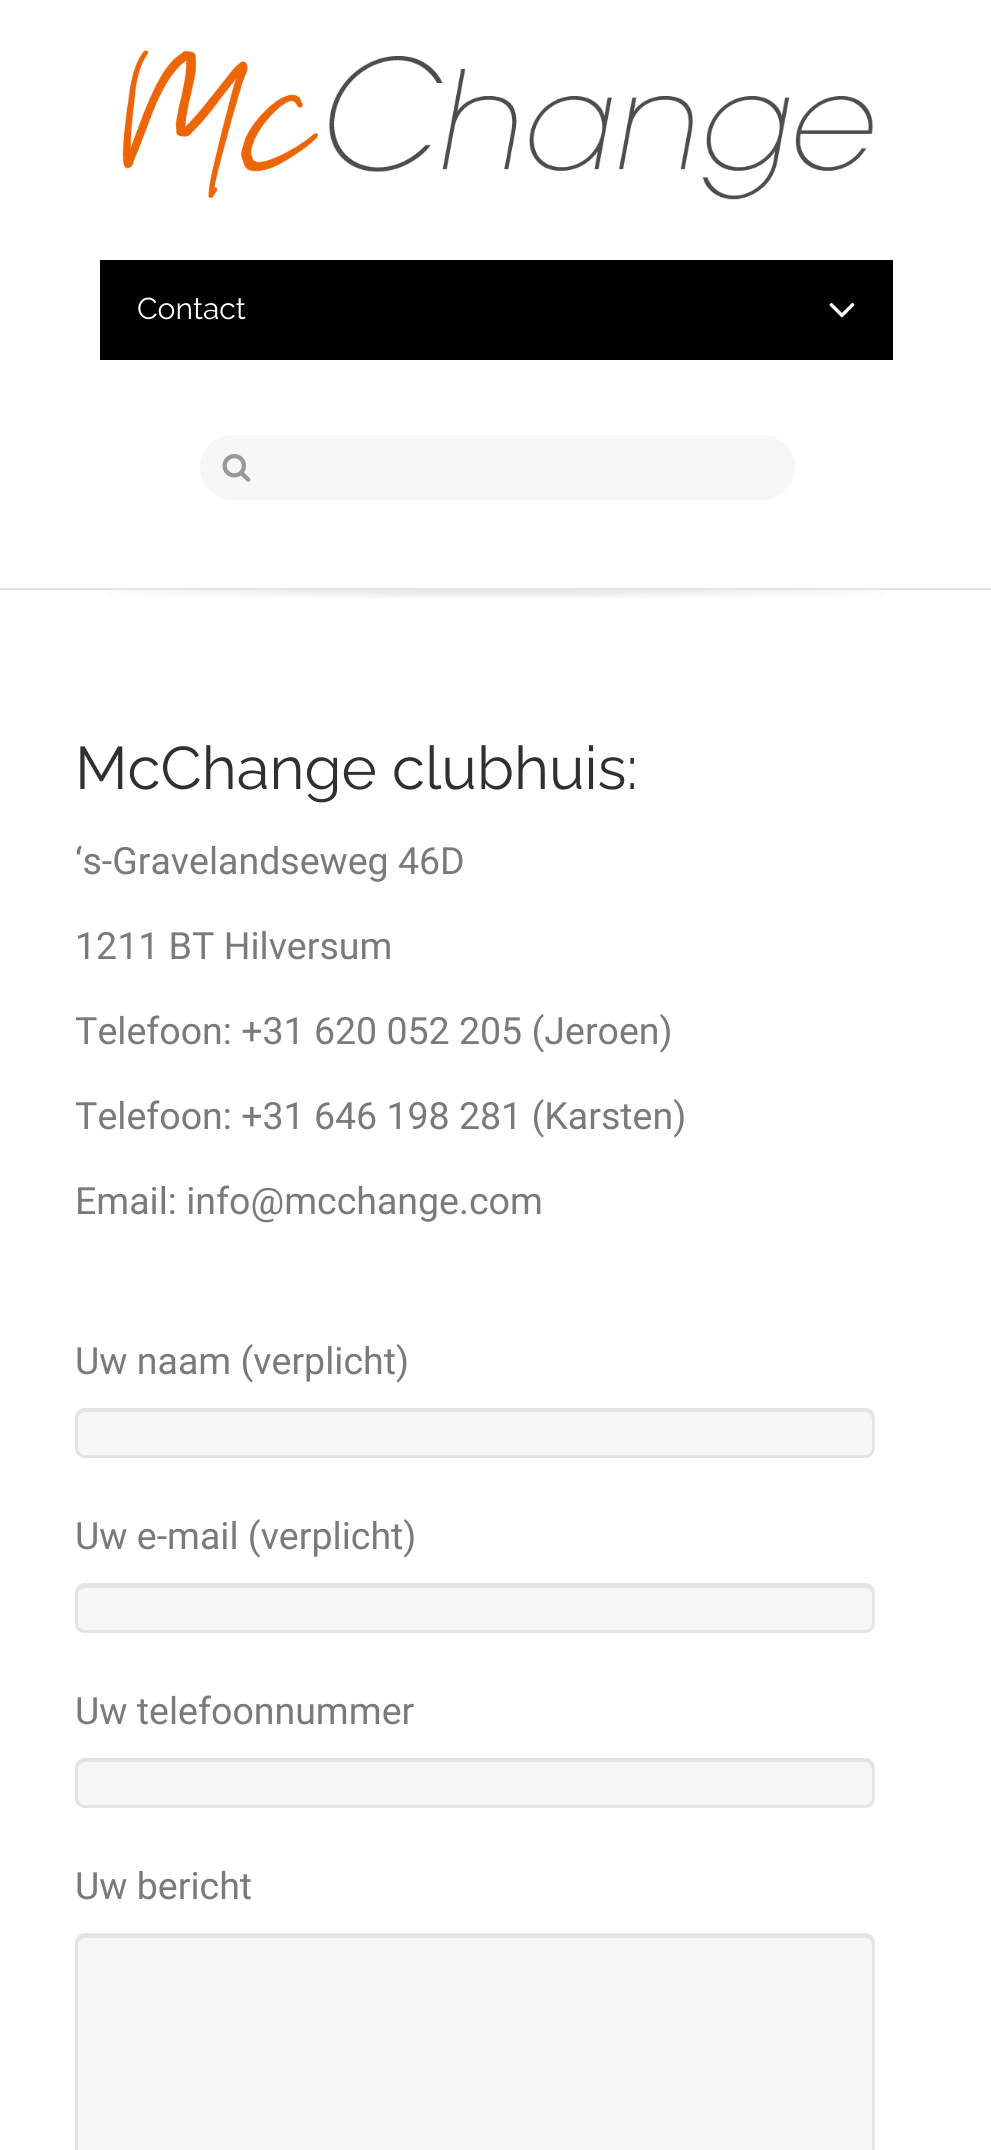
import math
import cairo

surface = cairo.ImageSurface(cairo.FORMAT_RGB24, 991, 2150)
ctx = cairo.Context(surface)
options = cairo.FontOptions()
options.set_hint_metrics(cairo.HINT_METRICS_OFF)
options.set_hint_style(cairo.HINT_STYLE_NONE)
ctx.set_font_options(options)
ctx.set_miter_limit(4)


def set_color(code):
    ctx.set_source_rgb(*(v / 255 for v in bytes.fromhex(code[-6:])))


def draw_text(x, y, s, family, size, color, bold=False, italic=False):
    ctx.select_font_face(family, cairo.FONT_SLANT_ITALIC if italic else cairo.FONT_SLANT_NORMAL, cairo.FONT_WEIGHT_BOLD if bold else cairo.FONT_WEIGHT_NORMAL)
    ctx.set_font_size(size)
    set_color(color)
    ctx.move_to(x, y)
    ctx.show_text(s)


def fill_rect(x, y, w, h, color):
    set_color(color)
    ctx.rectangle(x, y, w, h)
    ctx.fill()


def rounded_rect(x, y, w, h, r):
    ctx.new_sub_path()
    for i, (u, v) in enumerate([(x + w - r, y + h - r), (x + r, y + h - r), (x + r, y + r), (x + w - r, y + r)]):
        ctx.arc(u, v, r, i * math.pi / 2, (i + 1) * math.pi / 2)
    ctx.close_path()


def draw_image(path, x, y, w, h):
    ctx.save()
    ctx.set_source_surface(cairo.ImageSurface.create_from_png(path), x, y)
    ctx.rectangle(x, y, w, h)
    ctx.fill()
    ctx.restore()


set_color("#ffffff")
ctx.paint()
fill_rect(0, 588, 991, 2, "#e4e4e4")
draw_image("assets/img1.png", 122, 50, 751, 150)
fill_rect(100, 260, 793, 100, "#000000")
draw_text(137, 319, "Contact", "Raleway Thin", 30, "#ffffff")
draw_image("assets/img2.png", 829, 302, 26, 16)
set_color("#f7f7f7")
rounded_rect(200, 435, 595, 65, 32.5)
ctx.fill()
draw_image("assets/img3.png", 222, 453, 29, 29)
draw_image("assets/img4.png", 109, 590, 775, 8)
draw_text(75, 789, "McChange clubhuis:", "Raleway Thin", 60, "#303030")
draw_text(75, 874, "‘s-Gravelandseweg 46D", "Roboto", 37.5, "#7a7a7a")
draw_text(75, 959, "1211 BT Hilversum", "Roboto", 37.5, "#7a7a7a")
draw_text(75, 1044, "Telefoon: +31 620 052 205 (Jeroen)", "Roboto", 37.5, "#7a7a7a")
draw_text(75, 1129, "Telefoon: +31 646 198 281 (Karsten)", "Roboto", 37.5, "#7a7a7a")
draw_text(75, 1214, "Email: info@mcchange.com", "Roboto", 37.5, "#7a7a7a")
draw_text(75, 1374, "Uw naam (verplicht)", "Roboto", 37.5, "#7a7a7a")
set_color("#f7f7f7")
rounded_rect(75, 1408, 800, 50, 10)
ctx.fill()
set_color("#e4e4e4")
ctx.new_path()
ctx.move_to(85, 1412)
ctx.line_to(865, 1412)
ctx.curve_to(869, 1412, 872, 1416, 872, 1420)
ctx.line_to(872, 1451)
ctx.curve_to(873, 1450, 873, 1448, 873, 1447)
ctx.line_to(873, 1418)
ctx.curve_to(873, 1414, 869, 1410, 865, 1410)
ctx.line_to(86, 1410)
ctx.curve_to(82, 1410, 78, 1414, 78, 1418)
ctx.line_to(78, 1420)
ctx.curve_to(78, 1416, 81, 1412, 85, 1412)
ctx.close_path()
ctx.fill()
rounded_rect(76.5, 1409.5, 797, 47, 8.5)
ctx.set_line_width(3)
ctx.stroke()
draw_text(75, 1549, "Uw e-mail (verplicht)", "Roboto", 37.5, "#7a7a7a")
set_color("#f7f7f7")
rounded_rect(75, 1583, 800, 50, 10)
ctx.fill()
set_color("#e4e4e4")
ctx.new_path()
ctx.move_to(85, 1588)
ctx.line_to(865, 1588)
ctx.curve_to(869, 1588, 872, 1591, 872, 1595)
ctx.line_to(872, 1626)
ctx.curve_to(873, 1625, 873, 1623, 873, 1622)
ctx.line_to(873, 1593)
ctx.curve_to(873, 1589, 869, 1585, 865, 1585)
ctx.line_to(86, 1585)
ctx.curve_to(82, 1585, 78, 1589, 78, 1593)
ctx.line_to(78, 1595)
ctx.curve_to(78, 1591, 81, 1588, 85, 1588)
ctx.close_path()
ctx.fill()
rounded_rect(76.5, 1584.5, 797, 47, 8.5)
ctx.stroke()
draw_text(75, 1724, "Uw telefoonnummer", "Roboto", 37.5, "#7a7a7a")
set_color("#f7f7f7")
rounded_rect(75, 1758, 800, 50, 10)
ctx.fill()
set_color("#e4e4e4")
ctx.new_path()
ctx.move_to(85, 1762)
ctx.line_to(865, 1762)
ctx.curve_to(869, 1762, 872, 1766, 872, 1770)
ctx.line_to(872, 1801)
ctx.curve_to(873, 1800, 873, 1798, 873, 1797)
ctx.line_to(873, 1768)
ctx.curve_to(873, 1764, 869, 1760, 865, 1760)
ctx.line_to(86, 1760)
ctx.curve_to(82, 1760, 78, 1764, 78, 1768)
ctx.line_to(78, 1770)
ctx.curve_to(78, 1766, 81, 1762, 85, 1762)
ctx.close_path()
ctx.fill()
rounded_rect(76.5, 1759.5, 797, 47, 8.5)
ctx.stroke()
draw_text(75, 1899, "Uw bericht", "Roboto", 37.5, "#7a7a7a")
set_color("#f7f7f7")
rounded_rect(75, 1933, 800, 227, 10)
ctx.fill()
set_color("#e4e4e4")
ctx.new_path()
ctx.move_to(85, 1938)
ctx.line_to(865, 1938)
ctx.curve_to(869, 1938, 872, 1941, 872, 1945)
ctx.line_to(872, 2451)
ctx.curve_to(873, 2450, 873, 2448, 873, 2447)
ctx.line_to(873, 1943)
ctx.curve_to(873, 1939, 869, 1935, 865, 1935)
ctx.line_to(86, 1935)
ctx.curve_to(82, 1935, 78, 1939, 78, 1943)
ctx.line_to(78, 1945)
ctx.curve_to(78, 1941, 81, 1938, 85, 1938)
ctx.close_path()
ctx.fill()
rounded_rect(76.5, 1934.5, 797, 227, 8.5)
ctx.stroke()
surface.write_to_png("output.png")
